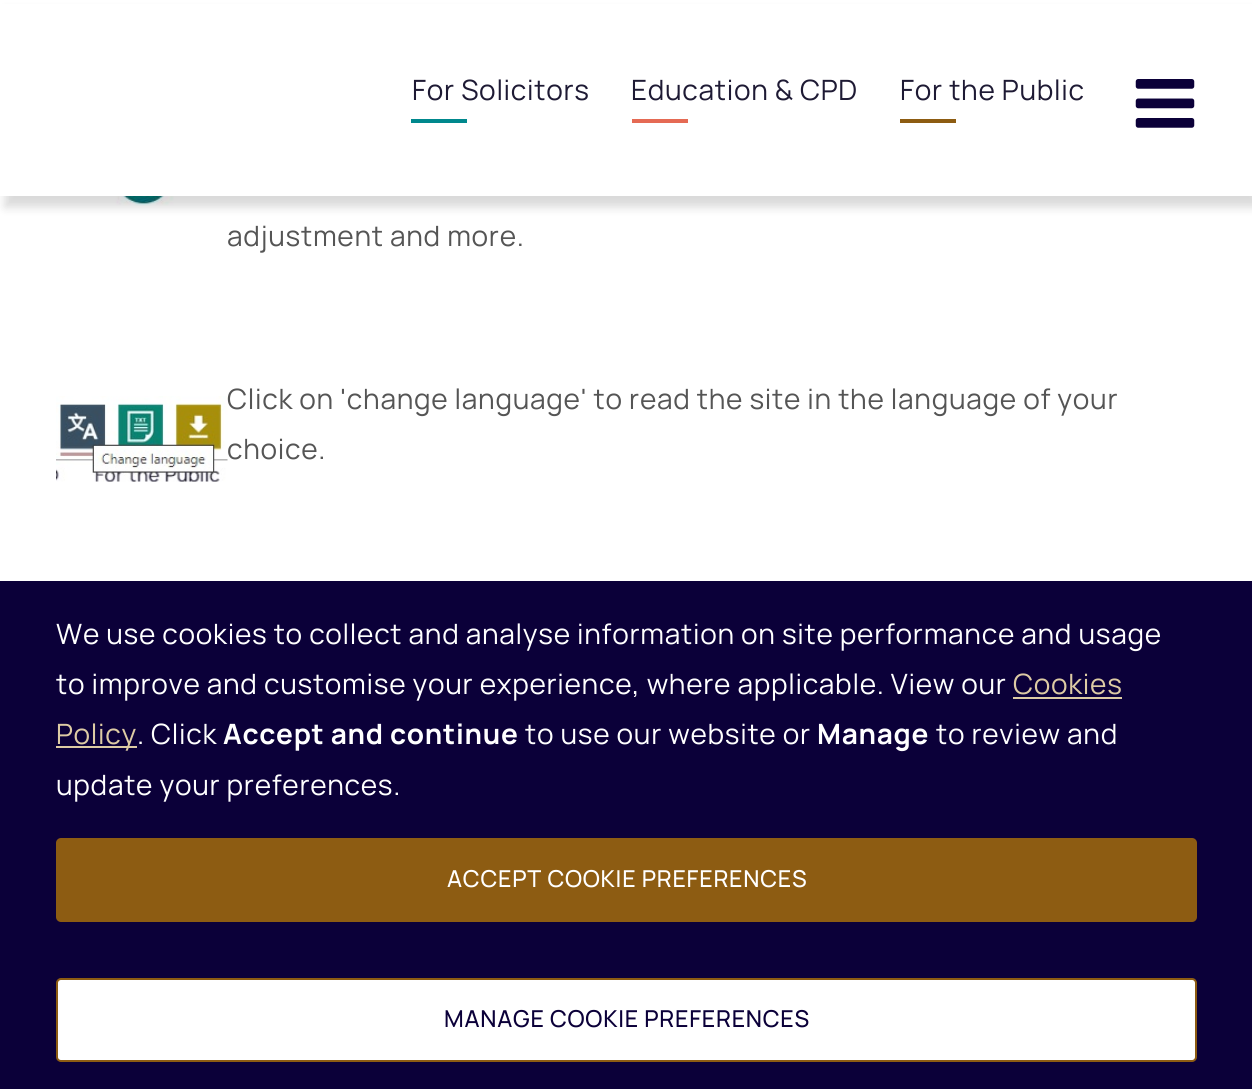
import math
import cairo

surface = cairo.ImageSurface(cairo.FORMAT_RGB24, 1252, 1089)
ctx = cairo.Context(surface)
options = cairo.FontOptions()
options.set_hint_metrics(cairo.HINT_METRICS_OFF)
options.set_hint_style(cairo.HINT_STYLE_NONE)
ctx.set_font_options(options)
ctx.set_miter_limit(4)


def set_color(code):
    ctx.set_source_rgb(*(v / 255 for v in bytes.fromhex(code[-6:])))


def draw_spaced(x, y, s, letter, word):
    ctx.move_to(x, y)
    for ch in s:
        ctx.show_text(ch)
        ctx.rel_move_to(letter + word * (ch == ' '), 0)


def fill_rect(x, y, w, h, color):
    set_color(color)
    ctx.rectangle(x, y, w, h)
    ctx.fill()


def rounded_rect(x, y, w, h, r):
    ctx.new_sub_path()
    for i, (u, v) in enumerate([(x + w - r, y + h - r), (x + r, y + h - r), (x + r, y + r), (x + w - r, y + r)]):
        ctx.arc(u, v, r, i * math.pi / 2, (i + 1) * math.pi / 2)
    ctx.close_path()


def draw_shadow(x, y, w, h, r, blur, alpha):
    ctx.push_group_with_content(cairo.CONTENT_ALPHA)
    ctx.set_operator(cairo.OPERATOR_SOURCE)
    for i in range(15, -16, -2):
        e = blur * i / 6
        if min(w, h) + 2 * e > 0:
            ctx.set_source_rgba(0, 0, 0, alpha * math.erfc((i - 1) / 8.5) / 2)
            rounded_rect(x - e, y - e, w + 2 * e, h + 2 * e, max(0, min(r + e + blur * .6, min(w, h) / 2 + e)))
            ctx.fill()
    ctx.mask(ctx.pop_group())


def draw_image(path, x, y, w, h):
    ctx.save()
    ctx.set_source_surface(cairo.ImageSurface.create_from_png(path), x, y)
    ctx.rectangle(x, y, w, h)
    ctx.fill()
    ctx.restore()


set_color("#ffffff")
ctx.paint()
draw_image("assets/img2.png", 108, 196, 66, 10)
set_color("#000000")
draw_shadow(5, 11, 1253, 196, 0, 5, 0.15)
fill_rect(0, 4, 1252, 192, "#ffffff")
fill_rect(411, 119, 56, 4, "#00888d")
ctx.select_font_face("Manrope")
ctx.set_font_size(28)
set_color("#1e1a34")
draw_spaced(412, 100, "For Solicitors", 0.7, 0)
fill_rect(632, 119, 56, 4, "#e56a54")
set_color("#1e1a34")
draw_spaced(631, 100, "Education & CPD", 0.7, 0)
fill_rect(900, 119, 56, 4, "#8d5c12")
set_color("#1e1a34")
draw_spaced(900, 100, "For the Public", 0.7, 0)
draw_image("assets/img1.png", 1135, 79, 60, 49)
set_color("#555555")
draw_spaced(227, 246, "adjustment and more.", 0.7, 0)
draw_image("assets/img3.png", 56, 396, 172, 86)
draw_spaced(227, 409, "Click on 'change language' to read the site in the language of your", 0.7, 0)
draw_spaced(227, 459, "choice.", 0.7, 0)
fill_rect(0, 581, 1252, 508, "#0b0039")
set_color("#ffffff")
draw_spaced(56, 644, "We use cookies to collect and analyse information on site performance and usage", 0.7, 0)
draw_spaced(56, 694, "to improve and customise your experience, where applicable. View our", 0.7, 0)
set_color("#ddcba4")
draw_spaced(1013, 694, "Cookies", 0.7, 0)
fill_rect(1013, 697, 109, 2, "#ddcba4")
fill_rect(56, 746, 81, 2, "#ddcba4")
draw_spaced(56, 744, "Policy", 0.7, 0)
set_color("#ffffff")
draw_spaced(137, 744, ". Click", 0.7, 0)
ctx.select_font_face("Manrope", cairo.FONT_SLANT_NORMAL, cairo.FONT_WEIGHT_BOLD)
draw_spaced(223, 744, "Accept and continue", 0.7, 0)
ctx.select_font_face("Manrope")
draw_spaced(525, 744, "to use our website or", 0.7, 0)
ctx.select_font_face("Manrope", cairo.FONT_SLANT_NORMAL, cairo.FONT_WEIGHT_BOLD)
draw_spaced(817, 744, "Manage", 0.7, 0)
ctx.select_font_face("Manrope")
draw_spaced(936, 744, "to review and", 0.7, 0)
draw_spaced(56, 795, "update your preferences.", 0.7, 0)
set_color("#8d5c12")
rounded_rect(56, 838, 1141, 84, 5)
ctx.fill()
ctx.select_font_face("Manrope Medium")
ctx.set_font_size(23.3)
set_color("#ffffff")
draw_spaced(447, 887, "ACCEPT COOKIE PREFERENCES", 0.75, 0)
rounded_rect(57, 979, 1139, 82, 4)
ctx.fill_preserve()
set_color("#8d5c12")
ctx.stroke()
set_color("#0b0039")
draw_spaced(444, 1027, "MANAGE COOKIE PREFERENCES", 0.75, 0)
surface.write_to_png("output.png")
